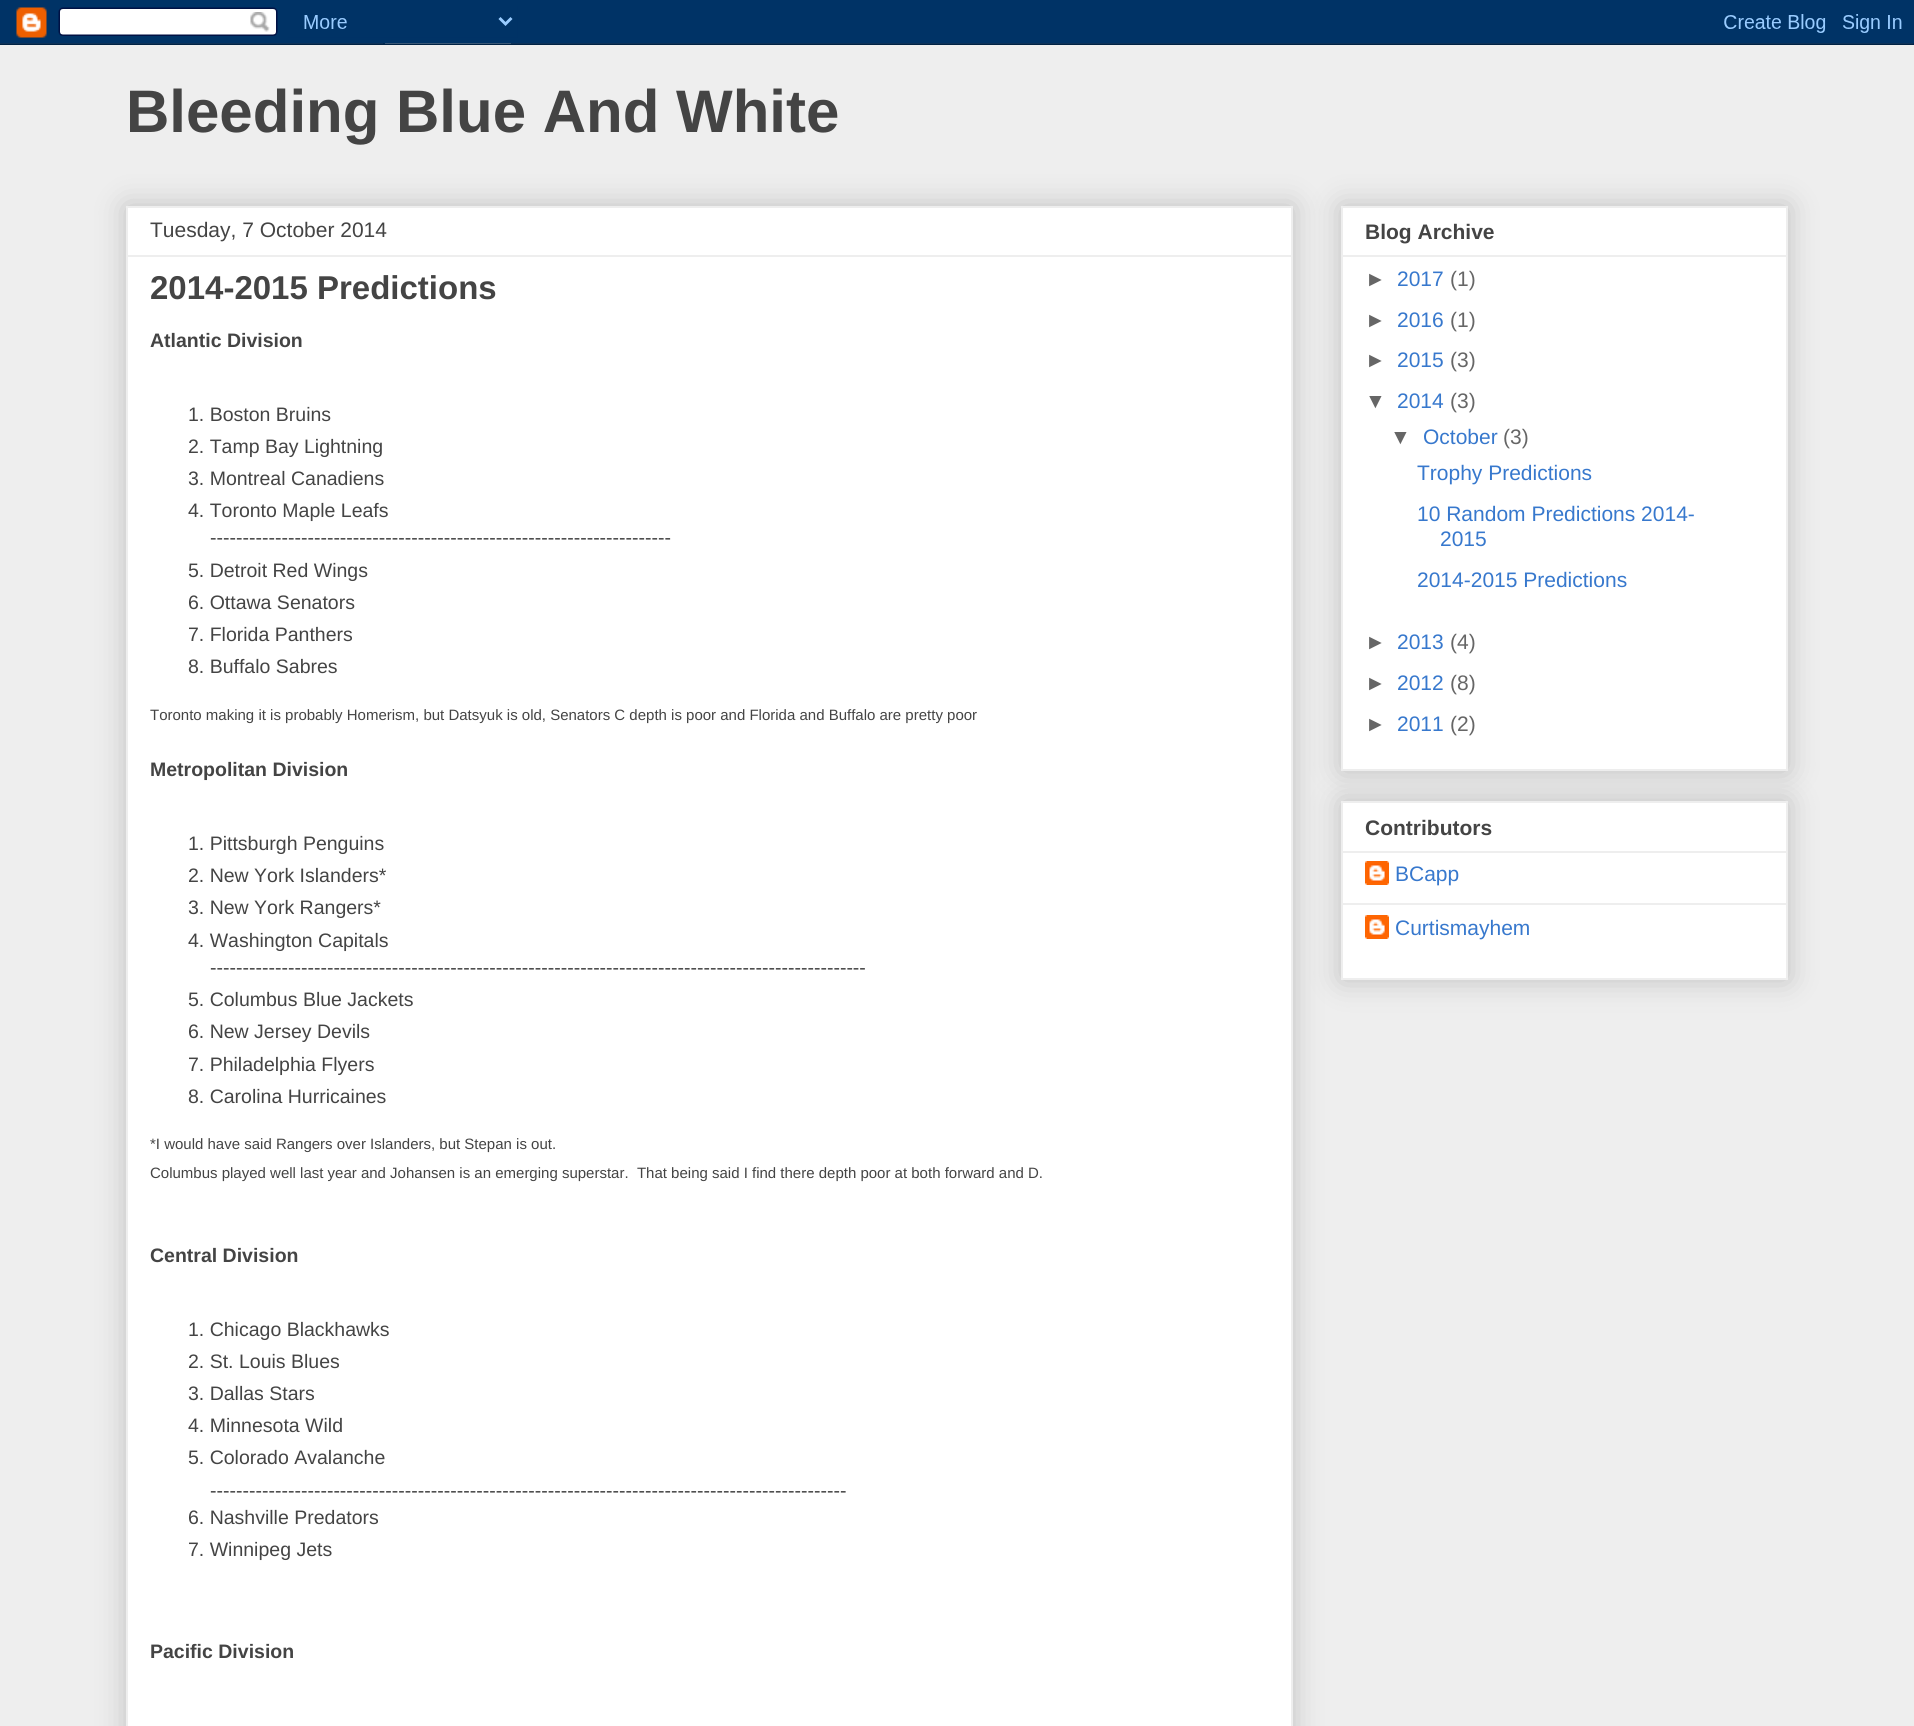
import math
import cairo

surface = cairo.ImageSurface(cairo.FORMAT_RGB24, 1914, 1726)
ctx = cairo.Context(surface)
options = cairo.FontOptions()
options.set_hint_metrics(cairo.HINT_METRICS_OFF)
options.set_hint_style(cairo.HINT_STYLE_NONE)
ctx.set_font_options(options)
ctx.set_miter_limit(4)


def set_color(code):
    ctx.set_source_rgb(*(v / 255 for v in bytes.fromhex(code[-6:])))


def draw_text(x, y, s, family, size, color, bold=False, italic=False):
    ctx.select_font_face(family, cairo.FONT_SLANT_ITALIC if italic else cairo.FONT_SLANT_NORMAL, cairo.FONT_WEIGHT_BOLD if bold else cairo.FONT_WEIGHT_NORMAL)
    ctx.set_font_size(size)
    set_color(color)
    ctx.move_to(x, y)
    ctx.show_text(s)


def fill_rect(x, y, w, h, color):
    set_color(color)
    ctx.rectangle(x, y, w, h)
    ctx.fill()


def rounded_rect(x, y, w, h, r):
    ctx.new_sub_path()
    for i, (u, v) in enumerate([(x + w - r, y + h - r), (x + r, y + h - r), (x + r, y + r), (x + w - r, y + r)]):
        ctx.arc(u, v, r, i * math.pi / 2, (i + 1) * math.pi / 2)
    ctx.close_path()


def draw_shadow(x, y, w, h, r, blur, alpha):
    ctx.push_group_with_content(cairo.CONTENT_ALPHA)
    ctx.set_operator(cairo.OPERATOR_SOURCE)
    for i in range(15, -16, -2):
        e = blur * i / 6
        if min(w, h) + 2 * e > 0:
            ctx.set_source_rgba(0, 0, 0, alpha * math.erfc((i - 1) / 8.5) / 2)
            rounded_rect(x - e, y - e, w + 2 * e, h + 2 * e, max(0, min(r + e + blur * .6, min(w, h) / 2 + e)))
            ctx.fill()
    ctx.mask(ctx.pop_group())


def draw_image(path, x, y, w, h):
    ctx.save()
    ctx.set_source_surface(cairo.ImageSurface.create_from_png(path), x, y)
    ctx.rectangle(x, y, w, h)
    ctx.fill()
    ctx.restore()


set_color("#eeeeee")
ctx.paint()
draw_image("assets/img1.png", 0, 0, 1914, 45)
draw_text(126, 132, "Bleeding Blue And White", "Liberation Sans", 60, "#444444", bold=True)
set_color("#000000")
draw_shadow(126, 206, 1167, 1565, 0, 15, 0.2)
set_color("#ffffff")
ctx.rectangle(127, 207, 1165, 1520)
ctx.fill_preserve()
set_color("#eeeeee")
ctx.stroke()
draw_text(150, 237, "Tuesday, 7 October 2014", "Liberation Sans", 21, "#444444")
fill_rect(128, 255, 1164, 2, "#eeeeee")
draw_text(150, 299, "2014-2015 Predictions", "Liberation Sans", 33, "#444444", bold=True)
draw_text(150, 347, "Atlantic Division", "Liberation Sans", 19.5, "#444444", bold=True)
draw_text(188, 421, "1. Boston Bruins", "Liberation Sans", 19.5, "#444444")
draw_text(188, 453, "2. Tamp Bay Lightning", "Liberation Sans", 19.5, "#444444")
draw_text(188, 485, "3. Montreal Canadiens", "Liberation Sans", 19.5, "#444444")
draw_text(188, 517, "4. Toronto Maple Leafs", "Liberation Sans", 19.5, "#444444")
draw_text(210, 544, "-----------------------------------------------------------------------", "Liberation Sans", 19.5, "#444444")
draw_text(188, 577, "5. Detroit Red Wings", "Liberation Sans", 19.5, "#444444")
draw_text(188, 609, "6. Ottawa Senators", "Liberation Sans", 19.5, "#444444")
draw_text(188, 641, "7. Florida Panthers", "Liberation Sans", 19.5, "#444444")
draw_text(188, 673, "8. Buffalo Sabres", "Liberation Sans", 19.5, "#444444")
draw_text(150, 720, "Toronto making it is probably Homerism, but Datsyuk is old, Senators C depth is poor and Florida and Buffalo are pretty poor", "Liberation Sans", 15, "#444444")
draw_text(150, 776, "Metropolitan Division", "Liberation Sans", 19.5, "#444444", bold=True)
draw_text(188, 850, "1. Pittsburgh Penguins", "Liberation Sans", 19.5, "#444444")
draw_text(188, 882, "2. New York Islanders*", "Liberation Sans", 19.5, "#444444")
draw_text(188, 914, "3. New York Rangers*", "Liberation Sans", 19.5, "#444444")
draw_text(188, 947, "4. Washington Capitals", "Liberation Sans", 19.5, "#444444")
draw_text(210, 974, "-----------------------------------------------------------------------------------------------------", "Liberation Sans", 19.5, "#444444")
draw_text(188, 1006, "5. Columbus Blue Jackets", "Liberation Sans", 19.5, "#444444")
draw_text(188, 1038, "6. New Jersey Devils", "Liberation Sans", 19.5, "#444444")
draw_text(188, 1071, "7. Philadelphia Flyers", "Liberation Sans", 19.5, "#444444")
draw_text(188, 1103, "8. Carolina Hurricaines", "Liberation Sans", 19.5, "#444444")
draw_text(150, 1149, "*I would have said Rangers over Islanders, but Stepan is out.", "Liberation Sans", 15, "#444444")
draw_text(150, 1178, "Columbus played well last year and Johansen is an emerging superstar.  That being said I find there depth poor at both forward and D.", "Liberation Sans", 15, "#444444")
draw_text(150, 1262, "Central Division", "Liberation Sans", 19.5, "#444444", bold=True)
draw_text(188, 1336, "1. Chicago Blackhawks", "Liberation Sans", 19.5, "#444444")
draw_text(188, 1368, "2. St. Louis Blues", "Liberation Sans", 19.5, "#444444")
draw_text(188, 1400, "3. Dallas Stars", "Liberation Sans", 19.5, "#444444")
draw_text(188, 1432, "4. Minnesota Wild", "Liberation Sans", 19.5, "#444444")
draw_text(188, 1464, "5. Colorado Avalanche", "Liberation Sans", 19.5, "#444444")
draw_text(210, 1497, "--------------------------------------------------------------------------------------------------", "Liberation Sans", 19.5, "#444444")
draw_text(188, 1524, "6. Nashville Predators", "Liberation Sans", 19.5, "#444444")
draw_text(188, 1556, "7. Winnipeg Jets", "Liberation Sans", 19.5, "#444444")
draw_text(150, 1658, "Pacific Division", "Liberation Sans", 19.5, "#444444", bold=True)
set_color("#000000")
draw_shadow(1341, 206, 447, 565, 0, 15, 0.2)
set_color("#ffffff")
ctx.rectangle(1342, 207, 445, 563)
ctx.fill_preserve()
set_color("#eeeeee")
ctx.stroke()
draw_text(1365, 239, "Blog Archive", "Liberation Sans", 21, "#444444", bold=True)
fill_rect(1343, 255, 444, 2, "#eeeeee")
draw_text(1365, 286, "►", "Liberation Sans", 21, "#666666")
draw_text(1397, 286, "2017", "Liberation Sans", 21, "#3778cd")
draw_text(1450, 286, "(1)", "Liberation Sans", 21, "#666666")
draw_text(1365, 327, "►", "Liberation Sans", 21, "#666666")
draw_text(1397, 327, "2016", "Liberation Sans", 21, "#3778cd")
draw_text(1450, 327, "(1)", "Liberation Sans", 21, "#666666")
draw_text(1365, 367, "►", "Liberation Sans", 21, "#666666")
draw_text(1397, 367, "2015", "Liberation Sans", 21, "#3778cd")
draw_text(1450, 367, "(3)", "Liberation Sans", 21, "#666666")
draw_text(1365, 408, "▼", "Liberation Sans", 21, "#666666")
draw_text(1397, 408, "2014", "Liberation Sans", 21, "#3778cd")
draw_text(1450, 408, "(3)", "Liberation Sans", 21, "#666666")
draw_text(1390, 444, "▼", "Liberation Sans", 21, "#666666")
draw_text(1423, 444, "October", "Liberation Sans", 21, "#3778cd")
draw_text(1503, 444, "(3)", "Liberation Sans", 21, "#666666")
draw_text(1417, 480, "Trophy Predictions", "Liberation Sans", 21, "#3778cd")
draw_text(1417, 521, "10 Random Predictions 2014-", "Liberation Sans", 21, "#3778cd")
draw_text(1440, 546, "2015", "Liberation Sans", 21, "#3778cd")
draw_text(1417, 587, "2014-2015 Predictions", "Liberation Sans", 21, "#3778cd")
draw_text(1365, 649, "►", "Liberation Sans", 21, "#666666")
draw_text(1397, 649, "2013", "Liberation Sans", 21, "#3778cd")
draw_text(1450, 649, "(4)", "Liberation Sans", 21, "#666666")
draw_text(1365, 690, "►", "Liberation Sans", 21, "#666666")
draw_text(1397, 690, "2012", "Liberation Sans", 21, "#3778cd")
draw_text(1450, 690, "(8)", "Liberation Sans", 21, "#666666")
draw_text(1365, 731, "►", "Liberation Sans", 21, "#666666")
draw_text(1397, 731, "2011", "Liberation Sans", 21, "#3778cd")
draw_text(1450, 731, "(2)", "Liberation Sans", 21, "#666666")
set_color("#000000")
draw_shadow(1341, 801, 447, 179, 0, 15, 0.2)
set_color("#ffffff")
ctx.rectangle(1342, 802, 445, 177)
ctx.fill_preserve()
set_color("#eeeeee")
ctx.stroke()
draw_text(1365, 835, "Contributors", "Liberation Sans", 21, "#444444", bold=True)
fill_rect(1343, 851, 444, 2, "#eeeeee")
draw_image("assets/img2.png", 1365, 861, 24, 24)
draw_text(1395, 881, "BCapp", "Liberation Sans", 21, "#3778cd")
fill_rect(1343, 903, 444, 2, "#eeeeee")
draw_image("assets/img2.png", 1365, 915, 24, 24)
draw_text(1395, 935, "Curtismayhem", "Liberation Sans", 21, "#3778cd")
surface.write_to_png("output.png")
